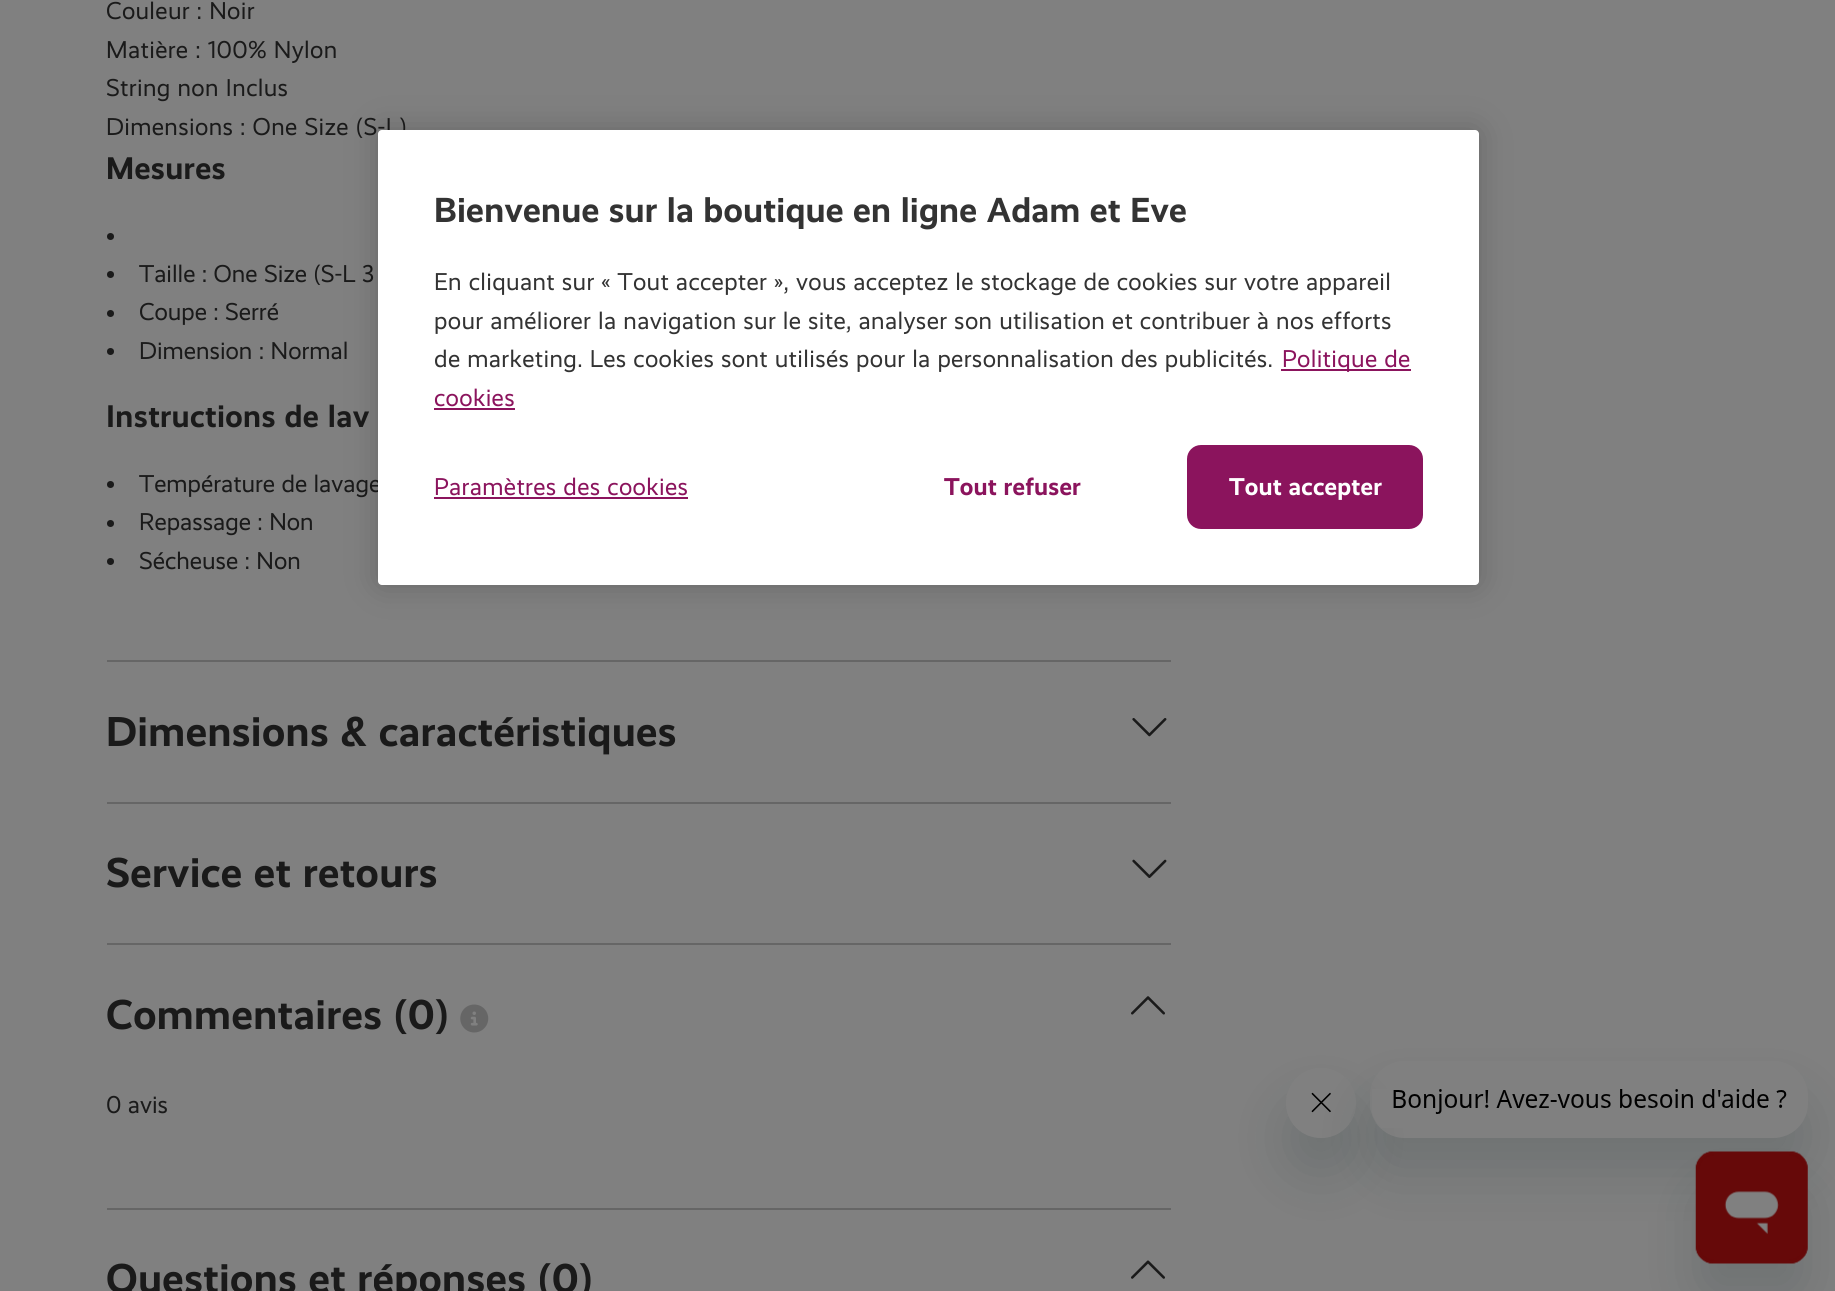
import math
import cairo

surface = cairo.ImageSurface(cairo.FORMAT_RGB24, 1835, 1291)
ctx = cairo.Context(surface)
options = cairo.FontOptions()
options.set_hint_metrics(cairo.HINT_METRICS_OFF)
options.set_hint_style(cairo.HINT_STYLE_NONE)
ctx.set_font_options(options)
ctx.set_miter_limit(4)


def set_color(code):
    ctx.set_source_rgb(*(v / 255 for v in bytes.fromhex(code[-6:])))


def draw_text(x, y, s, family, size, color, bold=False, italic=False):
    ctx.select_font_face(family, cairo.FONT_SLANT_ITALIC if italic else cairo.FONT_SLANT_NORMAL, cairo.FONT_WEIGHT_BOLD if bold else cairo.FONT_WEIGHT_NORMAL)
    ctx.set_font_size(size)
    set_color(color)
    ctx.move_to(x, y)
    ctx.show_text(s)


def draw_spaced(x, y, s, letter, word):
    ctx.move_to(x, y)
    for ch in s:
        ctx.show_text(ch)
        ctx.rel_move_to(letter + word * (ch == ' '), 0)


def fill_rect(x, y, w, h, color):
    set_color(color)
    ctx.rectangle(x, y, w, h)
    ctx.fill()


def rounded_rect(x, y, w, h, r):
    ctx.new_sub_path()
    for i, (u, v) in enumerate([(x + w - r, y + h - r), (x + r, y + h - r), (x + r, y + r), (x + w - r, y + r)]):
        ctx.arc(u, v, r, i * math.pi / 2, (i + 1) * math.pi / 2)
    ctx.close_path()


def draw_shadow(x, y, w, h, r, blur, alpha):
    ctx.push_group_with_content(cairo.CONTENT_ALPHA)
    ctx.set_operator(cairo.OPERATOR_SOURCE)
    for i in range(15, -16, -2):
        e = blur * i / 6
        if min(w, h) + 2 * e > 0:
            ctx.set_source_rgba(0, 0, 0, alpha * math.erfc((i - 1) / 8.5) / 2)
            rounded_rect(x - e, y - e, w + 2 * e, h + 2 * e, max(0, min(r + e + blur * .6, min(w, h) / 2 + e)))
            ctx.fill()
    ctx.mask(ctx.pop_group())


def draw_image(path, x, y, w, h):
    ctx.save()
    ctx.set_source_surface(cairo.ImageSurface.create_from_png(path), x, y)
    ctx.rectangle(x, y, w, h)
    ctx.fill()
    ctx.restore()


set_color("#808080")
ctx.paint()
ctx.select_font_face("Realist")
ctx.set_font_size(24.5)
set_color("#1a1a1a")
draw_spaced(106, 19, "Couleur : Noir", 0.35, 0)
draw_spaced(106, 58, "Matière : 100% Nylon", 0.35, 0)
draw_spaced(106, 96, "String non Inclus", 0.35, 0)
draw_spaced(106, 135, "Dimensions : One Size (S-L)", 0.35, 0)
ctx.select_font_face("Realist", cairo.FONT_SLANT_NORMAL, cairo.FONT_WEIGHT_BOLD)
ctx.set_font_size(31.5)
draw_spaced(106, 179, "Mesures", 0.35, 0)
ctx.new_path()
ctx.arc(110.5, 236.5, 3.5, 0, 2 * math.pi)
ctx.fill()
ctx.arc(110.5, 274.5, 3.5, 0, 2 * math.pi)
ctx.fill()
draw_text(139, 282, "Taille : One Size (S-L 3", "Realist", 24.5, "#1a1a1a")
ctx.new_path()
ctx.arc(110.5, 313.5, 3.5, 0, 2 * math.pi)
ctx.fill()
draw_text(139, 320, "Coupe : Serré", "Realist", 24.5, "#1a1a1a")
ctx.new_path()
ctx.arc(110.5, 351.5, 3.5, 0, 2 * math.pi)
ctx.fill()
draw_text(139, 359, "Dimension : Normal", "Realist", 24.5, "#1a1a1a")
ctx.select_font_face("Realist", cairo.FONT_SLANT_NORMAL, cairo.FONT_WEIGHT_BOLD)
ctx.set_font_size(31.5)
draw_spaced(106, 427, "Instructions de lav", 0.35, 0)
ctx.new_path()
ctx.arc(110.5, 484.5, 3.5, 0, 2 * math.pi)
ctx.fill()
draw_text(139, 492, "Température de lavage", "Realist", 24.5, "#1a1a1a")
ctx.new_path()
ctx.arc(110.5, 523.5, 3.5, 0, 2 * math.pi)
ctx.fill()
draw_text(139, 530, "Repassage : Non", "Realist", 24.5, "#1a1a1a")
ctx.new_path()
ctx.arc(110.5, 561.5, 3.5, 0, 2 * math.pi)
ctx.fill()
draw_text(139, 569, "Sécheuse : Non", "Realist", 24.5, "#1a1a1a")
fill_rect(107, 660, 1064, 2, "#666666")
ctx.select_font_face("Realist", cairo.FONT_SLANT_NORMAL, cairo.FONT_WEIGHT_BOLD)
ctx.set_font_size(42)
set_color("#1a1a1a")
draw_spaced(106, 746, "Dimensions & caractéristiques", 0.35, 0)
draw_image("assets/img1.png", 1132, 718, 35, 19)
fill_rect(107, 802, 1064, 2, "#666666")
set_color("#1a1a1a")
draw_spaced(106, 887, "Service et retours", 0.35, 0)
draw_image("assets/img2.png", 1132, 859, 35, 19)
fill_rect(107, 943, 1064, 2, "#666666")
set_color("#1a1a1a")
draw_spaced(106, 1029, "Commentaires (0)", 0.35, 0)
draw_image("assets/img3.png", 460, 1004, 29, 29)
draw_image("assets/img4.png", 1131, 996, 34, 19)
draw_text(106, 1113, "0 avis", "Realist", 24.5, "#1a1a1a")
fill_rect(107, 1208, 1064, 2, "#666666")
ctx.select_font_face("Realist", cairo.FONT_SLANT_NORMAL, cairo.FONT_WEIGHT_BOLD)
ctx.set_font_size(42)
set_color("#1a1a1a")
draw_spaced(106, 1293, "Questions et réponses (0)", 0.35, 0)
draw_image("assets/img5.png", 1131, 1260, 34, 19)
set_color("#000000")
draw_shadow(378, 130, 1101, 455, 4, 16, 0.2)
set_color("#ffffff")
rounded_rect(378, 130, 1101, 455, 4)
ctx.fill()
ctx.set_font_size(35)
set_color("#333333")
draw_spaced(434, 222, "Bienvenue sur la boutique en ligne Adam et Eve", 0.2, 0)
ctx.select_font_face("Realist")
ctx.set_font_size(24.5)
draw_spaced(434, 290, "En cliquant sur « Tout accepter », vous acceptez le stockage de cookies sur votre appareil", 0.35, 0)
draw_spaced(434, 329, "pour améliorer la navigation sur le site, analyser son utilisation et contribuer à nos efforts", 0.35, 0)
draw_spaced(434, 367, "de marketing. Les cookies sont utilisés pour la personnalisation des publicités.", 0.35, 0)
fill_rect(1281, 369, 130, 2, "#8b145d")
draw_spaced(1282, 367, "Politique de", 0.35, 0)
draw_spaced(434, 406, "cookies", 0.35, 0)
fill_rect(434, 408, 81, 2, "#8b145d")
draw_spaced(434, 495, "Paramètres des cookies", 0.35, 0)
fill_rect(434, 497, 254, 2, "#8b145d")
ctx.select_font_face("Realist", cairo.FONT_SLANT_NORMAL, cairo.FONT_WEIGHT_BOLD)
draw_spaced(944, 495, "Tout refuser", 0.2, 0)
rounded_rect(1187, 445, 236, 84, 14)
ctx.fill()
set_color("#ffffff")
draw_spaced(1229, 495, "Tout accepter", 0.2, 0)
ctx.save()
ctx.set_fill_rule(cairo.FILL_RULE_EVEN_ODD)
ctx.new_path()
ctx.move_to(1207, 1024)
ctx.line_to(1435, 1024)
ctx.line_to(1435, 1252)
ctx.line_to(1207, 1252)
ctx.close_path()
ctx.move_to(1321, 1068)
ctx.curve_to(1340.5, 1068, 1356, 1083.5, 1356, 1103)
ctx.curve_to(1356, 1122.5, 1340.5, 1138, 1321, 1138)
ctx.curve_to(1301.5, 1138, 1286, 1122.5, 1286, 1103)
ctx.curve_to(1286, 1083.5, 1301.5, 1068, 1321, 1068)
ctx.close_path()
ctx.clip()
set_color("#0c2527")
draw_shadow(1286, 1103, 70, 70, 35, 26, 0.15)
ctx.restore()
draw_image("assets/img7.png", 1311, 1092, 20, 21)
ctx.save()
ctx.set_fill_rule(cairo.FILL_RULE_EVEN_ODD)
ctx.new_path()
ctx.move_to(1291, 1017)
ctx.line_to(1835, 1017)
ctx.line_to(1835, 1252)
ctx.line_to(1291, 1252)
ctx.close_path()
ctx.move_to(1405, 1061)
ctx.line_to(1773, 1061)
ctx.curve_to(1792.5, 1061, 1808, 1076.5, 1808, 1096)
ctx.line_to(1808, 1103)
ctx.curve_to(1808, 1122.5, 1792.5, 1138, 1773, 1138)
ctx.line_to(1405, 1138)
ctx.curve_to(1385.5, 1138, 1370, 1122.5, 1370, 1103)
ctx.line_to(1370, 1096)
ctx.curve_to(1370, 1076.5, 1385.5, 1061, 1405, 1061)
ctx.close_path()
ctx.clip()
set_color("#0c2527")
draw_shadow(1370, 1096, 438, 77, 35, 26, 0.15)
ctx.restore()
draw_image("assets/img6.png", 1372, 1089, 415, 39)
set_color("#0c2527")
draw_shadow(1696, 1187, 112, 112, 18, 26, 0.15)
draw_image("assets/img8.png", 1695, 1151, 113, 113)
surface.write_to_png("output.png")
